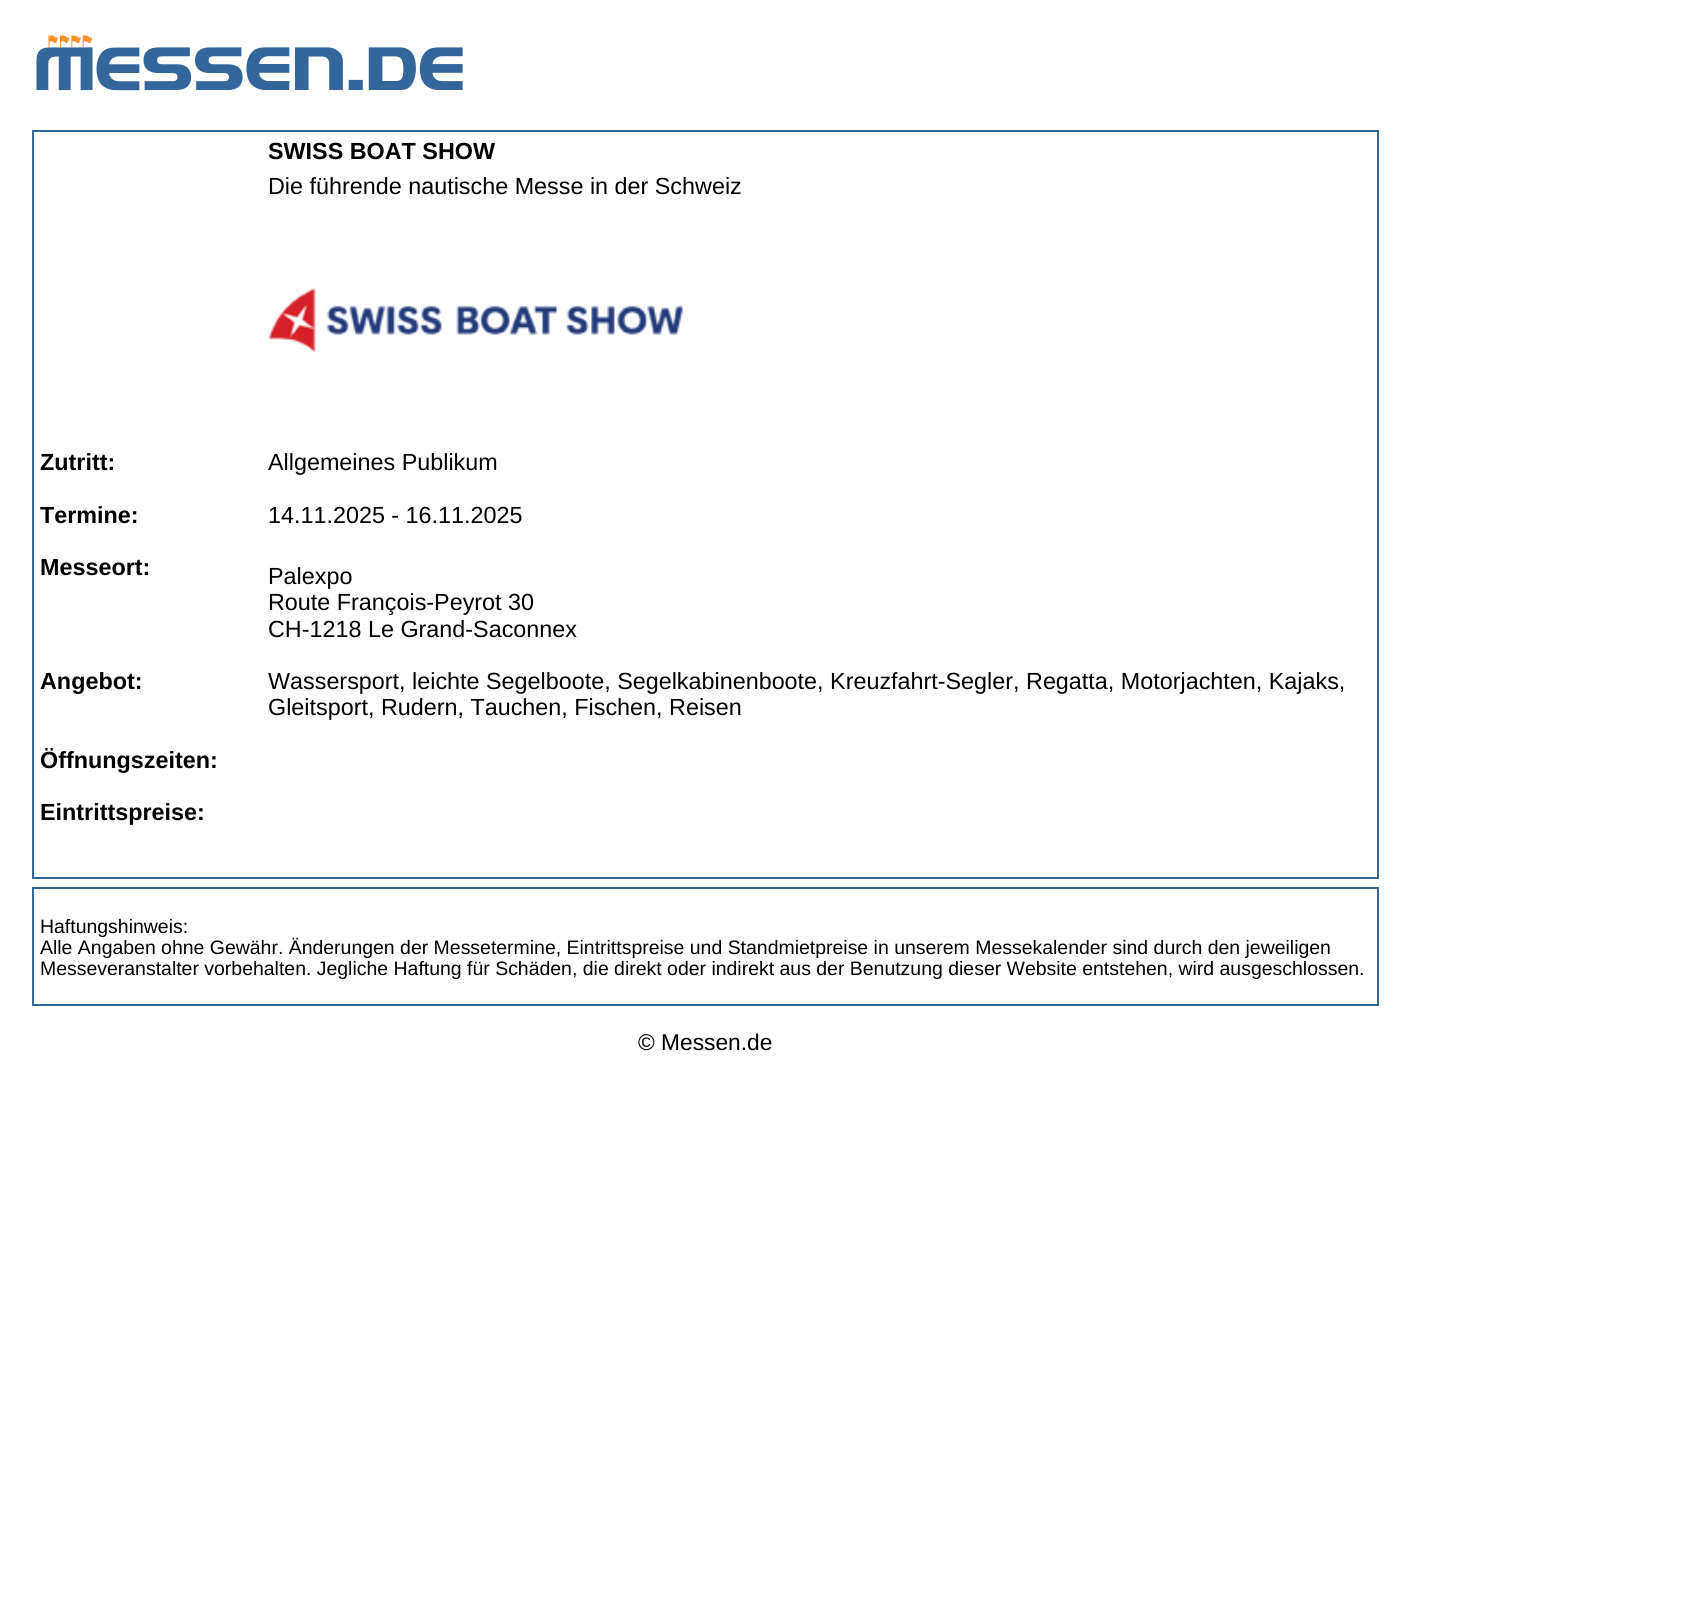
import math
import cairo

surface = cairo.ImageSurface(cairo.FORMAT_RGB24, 1681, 1603)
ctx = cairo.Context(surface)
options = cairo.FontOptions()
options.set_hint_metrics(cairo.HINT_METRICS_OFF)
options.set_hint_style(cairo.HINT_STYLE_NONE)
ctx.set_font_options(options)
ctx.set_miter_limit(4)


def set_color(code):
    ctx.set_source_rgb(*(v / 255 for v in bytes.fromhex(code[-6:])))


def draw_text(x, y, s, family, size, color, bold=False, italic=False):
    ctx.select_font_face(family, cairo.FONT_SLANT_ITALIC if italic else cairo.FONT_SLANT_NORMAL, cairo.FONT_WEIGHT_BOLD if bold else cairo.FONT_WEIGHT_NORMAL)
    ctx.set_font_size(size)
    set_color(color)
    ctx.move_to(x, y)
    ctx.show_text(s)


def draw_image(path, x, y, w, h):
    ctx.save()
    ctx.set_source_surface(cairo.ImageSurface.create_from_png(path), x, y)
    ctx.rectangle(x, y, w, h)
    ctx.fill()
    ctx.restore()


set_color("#ffffff")
ctx.paint()
draw_image("assets/img1.png", 36, 35, 427, 56)
ctx.rectangle(33, 131, 1345, 747)
set_color("#336699")
ctx.stroke()
draw_text(268, 159, "SWISS BOAT SHOW", "Liberation Sans", 23.35, "#000000", bold=True)
draw_text(268, 194, "Die führende nautische Messe in der Schweiz", "Liberation Sans", 23.35, "#000000")
draw_image("assets/img2.png", 269, 288, 414, 65)
draw_text(40, 470, "Zutritt:", "Liberation Sans", 23.35, "#000000", bold=True)
draw_text(268, 470, "Allgemeines Publikum", "Liberation Sans", 23.35, "#000000")
draw_text(40, 523, "Termine:", "Liberation Sans", 23.35, "#000000", bold=True)
draw_text(268, 523, "14.11.2025 - 16.11.2025", "Liberation Sans", 23.35, "#000000")
draw_text(40, 575, "Messeort:", "Liberation Sans", 23.35, "#000000", bold=True)
draw_text(268, 584, "Palexpo", "Liberation Sans", 23.35, "#000000")
draw_text(268, 610, "Route François-Peyrot 30", "Liberation Sans", 23.35, "#000000")
draw_text(268, 637, "CH-1218 Le Grand-Saconnex", "Liberation Sans", 23.35, "#000000")
draw_text(40, 689, "Angebot:", "Liberation Sans", 23.35, "#000000", bold=True)
draw_text(268, 689, "Wassersport, leichte Segelboote, Segelkabinenboote, Kreuzfahrt-Segler, Regatta, Motorjachten, Kajaks,", "Liberation Sans", 23.35, "#000000")
draw_text(268, 715, "Gleitsport, Rudern, Tauchen, Fischen, Reisen", "Liberation Sans", 23.35, "#000000")
draw_text(40, 768, "Öffnungszeiten:", "Liberation Sans", 23.35, "#000000", bold=True)
draw_text(40, 820, "Eintrittspreise:", "Liberation Sans", 23.35, "#000000", bold=True)
ctx.rectangle(33, 888, 1345, 117)
set_color("#336699")
ctx.stroke()
draw_text(40, 933, "Haftungshinweis:", "Liberation Sans", 19.45, "#000000")
draw_text(40, 954, "Alle Angaben ohne Gewähr. Änderungen der Messetermine, Eintrittspreise und Standmietpreise in unserem Messekalender sind durch den jeweiligen", "Liberation Sans", 19.45, "#000000")
draw_text(40, 975, "Messeveranstalter vorbehalten. Jegliche Haftung für Schäden, die direkt oder indirekt aus der Benutzung dieser Website entstehen, wird ausgeschlossen.", "Liberation Sans", 19.45, "#000000")
draw_text(638, 1050, "© Messen.de", "Liberation Sans", 22.75, "#000000")
surface.write_to_png("output.png")
